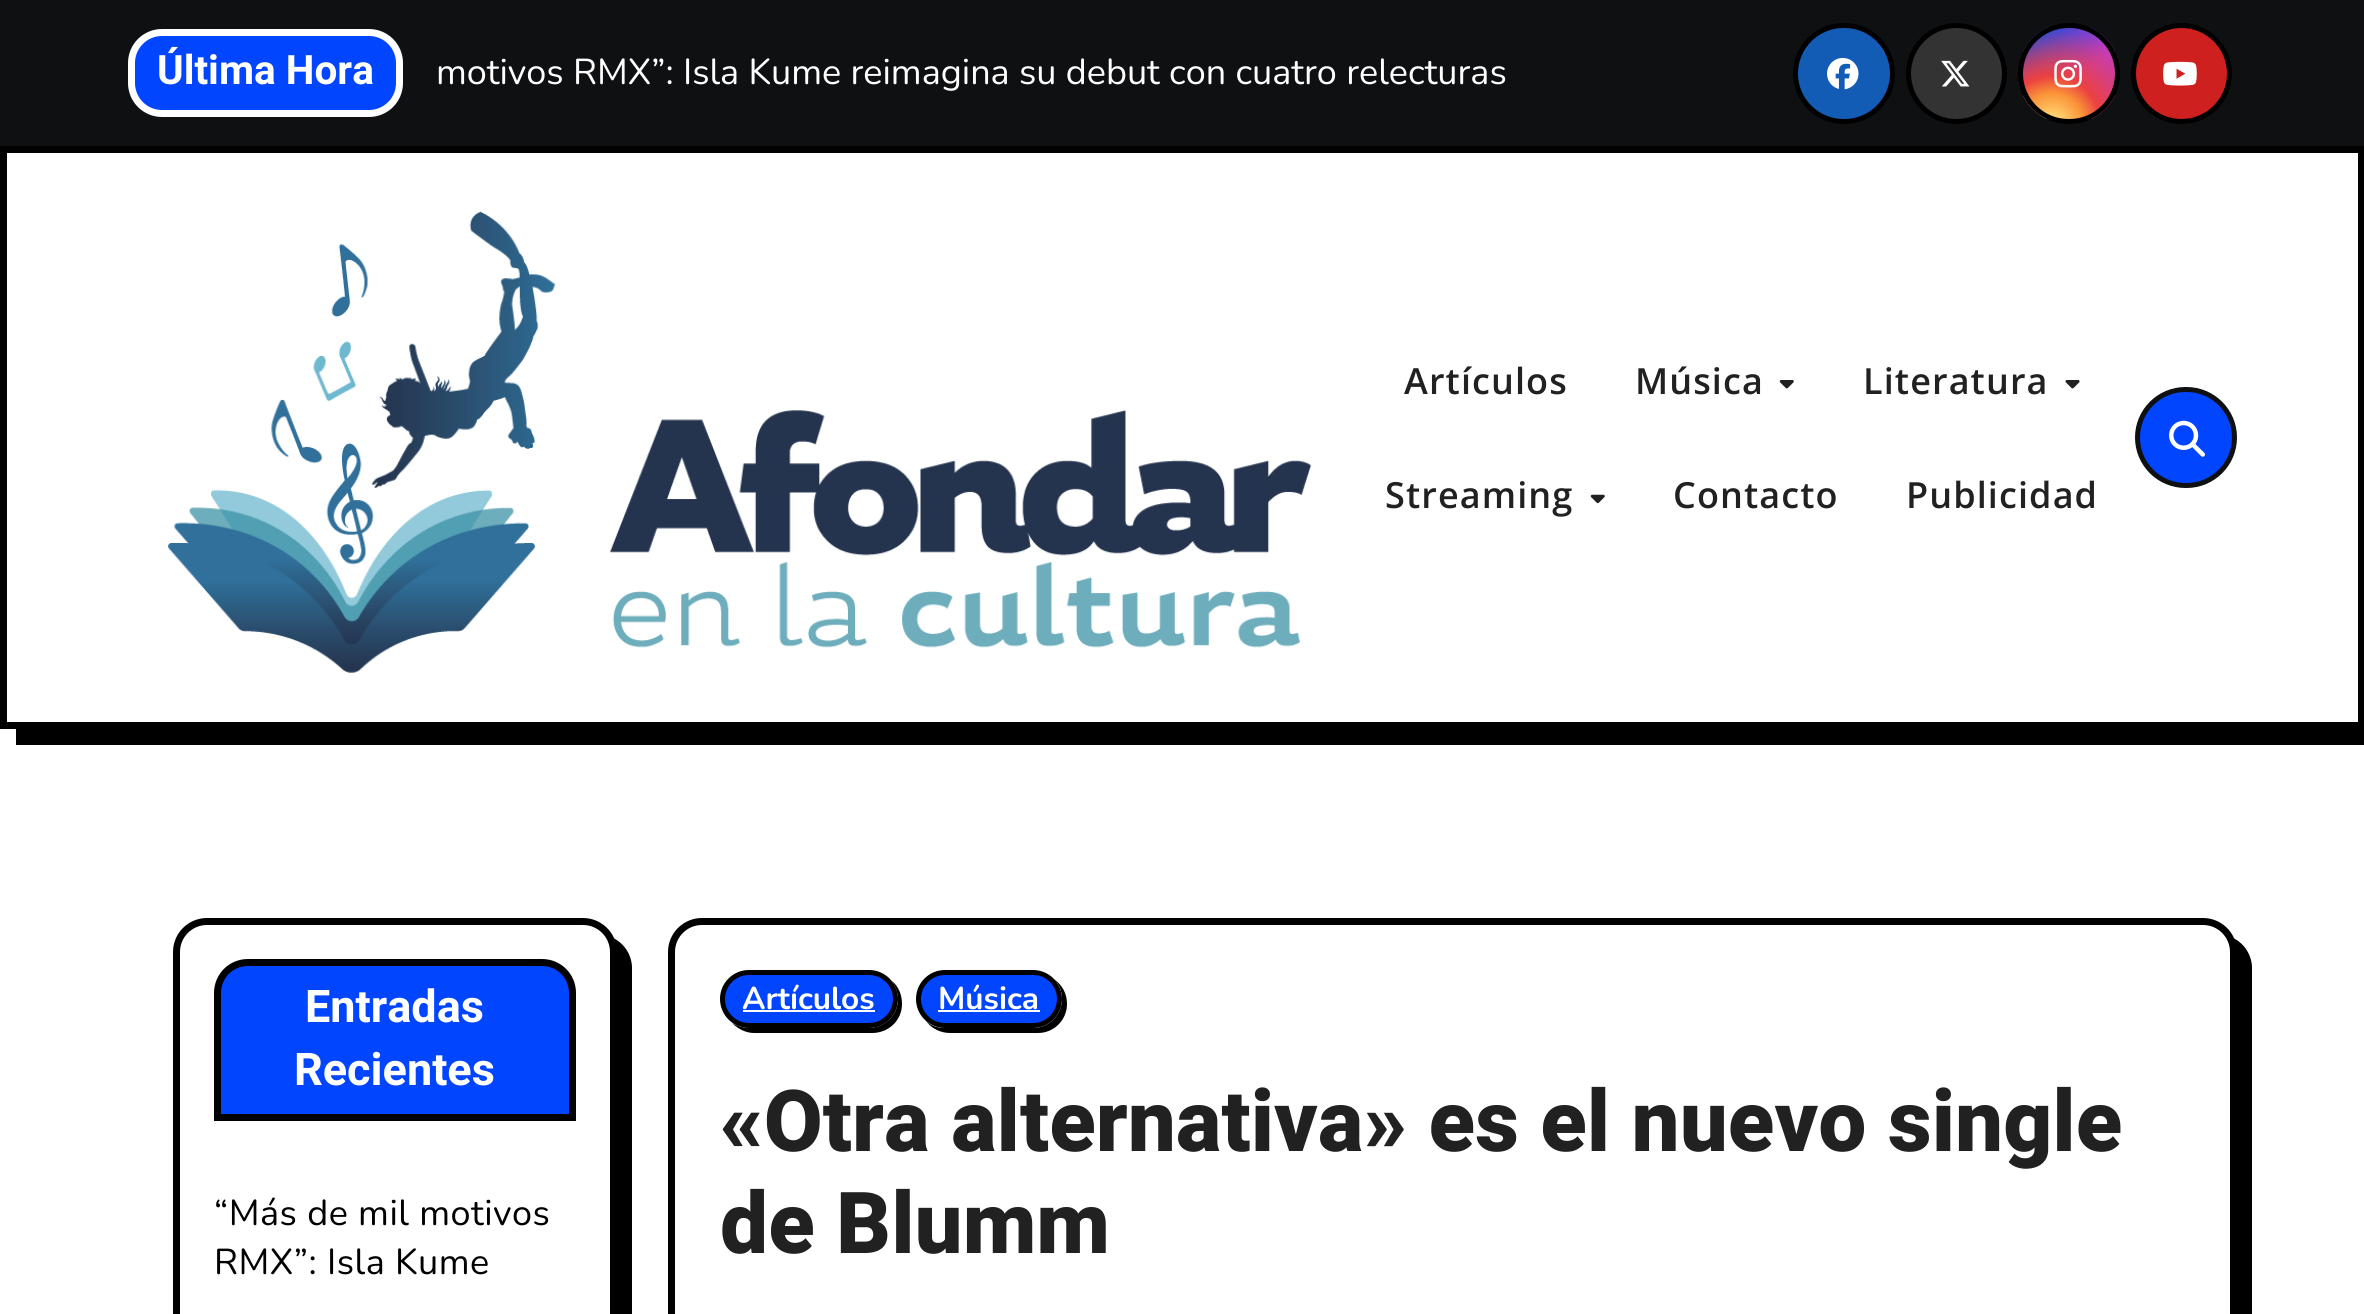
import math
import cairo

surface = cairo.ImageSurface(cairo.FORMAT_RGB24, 2364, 1314)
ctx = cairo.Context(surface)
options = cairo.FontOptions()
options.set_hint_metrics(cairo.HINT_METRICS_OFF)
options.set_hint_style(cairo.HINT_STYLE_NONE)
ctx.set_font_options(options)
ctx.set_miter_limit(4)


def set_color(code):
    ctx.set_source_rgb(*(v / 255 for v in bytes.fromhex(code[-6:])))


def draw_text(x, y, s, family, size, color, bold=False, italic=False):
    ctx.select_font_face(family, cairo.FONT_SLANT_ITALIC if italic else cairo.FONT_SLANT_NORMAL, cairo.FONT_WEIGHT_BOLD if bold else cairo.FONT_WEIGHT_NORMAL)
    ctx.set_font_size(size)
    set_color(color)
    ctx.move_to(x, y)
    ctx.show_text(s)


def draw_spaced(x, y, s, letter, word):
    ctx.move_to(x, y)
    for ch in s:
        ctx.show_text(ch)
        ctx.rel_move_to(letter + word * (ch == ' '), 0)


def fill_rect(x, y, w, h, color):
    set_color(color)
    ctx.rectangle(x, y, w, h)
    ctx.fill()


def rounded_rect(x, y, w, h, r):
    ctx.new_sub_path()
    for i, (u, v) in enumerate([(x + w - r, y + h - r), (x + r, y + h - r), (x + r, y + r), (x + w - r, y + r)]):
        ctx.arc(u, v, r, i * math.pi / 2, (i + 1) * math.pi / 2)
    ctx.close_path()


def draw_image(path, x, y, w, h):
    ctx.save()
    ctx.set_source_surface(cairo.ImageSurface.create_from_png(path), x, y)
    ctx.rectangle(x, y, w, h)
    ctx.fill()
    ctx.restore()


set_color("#ffffff")
ctx.paint()
fill_rect(0, 0, 2364, 146, "#0f1012")
set_color("#0245ff")
rounded_rect(131.5, 32.5, 268, 81, 30.5)
ctx.fill_preserve()
set_color("#ffffff")
ctx.set_line_width(7)
ctx.stroke()
draw_text(157, 84, "Última Hora", "Heebo", 40.5, "#ffffff", bold=True)
draw_text(436, 84, "motivos RMX”: Isla Kume reimagina su debut con cuatro relecturas", "Nunito", 36, "#ffffff")
set_color("#135cb6")
rounded_rect(1795.5, 25.5, 97, 96, 48)
ctx.fill_preserve()
set_color("#000000")
ctx.set_line_width(5)
ctx.stroke()
draw_image("assets/img1.png", 1827, 57, 32, 33)
set_color("#333333")
ctx.arc(1956.5, 73.5, 48, 0, 2 * math.pi)
ctx.fill_preserve()
set_color("#000000")
ctx.stroke()
draw_image("assets/img2.png", 1941, 60, 29, 27)
ctx.save()
rounded_rect(2018, 23, 102, 101, 50.5)
ctx.clip()
gradient = cairo.LinearGradient(2023, 27, 2115, 119)
gradient.add_color_stop_rgba(0.12, 0.137, 0.294, 0.843, 1)
gradient.add_color_stop_rgba(0.58, 0.765, 0.235, 0.745, 1)
ctx.set_source(gradient)
ctx.rectangle(2023, 27, 92, 92)
ctx.fill()
gradient = cairo.RadialGradient(2052, 125, 0, 2052, 125, 116)
gradient.add_color_stop_rgba(0, 1, 0.882, 0.49, 1)
gradient.add_color_stop_rgba(0.1, 1, 0.804, 0.412, 1)
gradient.add_color_stop_rgba(0.28, 0.98, 0.569, 0.216, 1)
gradient.add_color_stop_rgba(0.42, 0.922, 0.255, 0.255, 1)
gradient.add_color_stop_rgba(0.82, 0.922, 0.255, 0.255, 0)
ctx.set_source(gradient)
ctx.rectangle(2023, 31, 92, 88)
ctx.fill()
ctx.restore()
rounded_rect(2020.5, 25.5, 97, 96, 48)
ctx.stroke()
draw_image("assets/img3.png", 2054, 59, 28, 29)
set_color("#cd201f")
ctx.arc(2181.5, 73.5, 48, 0, 2 * math.pi)
ctx.fill_preserve()
set_color("#000000")
ctx.stroke()
draw_image("assets/img4.png", 2163, 61, 34, 25)
ctx.new_path()
ctx.move_to(16, 729)
ctx.line_to(16, 745)
ctx.line_to(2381, 745)
ctx.line_to(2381, 162)
ctx.line_to(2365, 162)
ctx.line_to(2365, 729)
ctx.close_path()
ctx.fill()
ctx.rectangle(3.5, 149.5, 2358, 576)
ctx.set_line_width(7)
ctx.stroke()
draw_image("assets/img5.png", 168, 211, 1143, 462)
ctx.select_font_face("Open Sans SemiBold")
set_color("#212121")
draw_spaced(1404, 394, "Artículos", 1.1, 0)
draw_spaced(1635, 394, "Música", 1.1, 0)
draw_image("assets/img6.png", 1779, 380, 15, 9)
draw_spaced(1863, 394, "Literatura", 1.1, 0)
draw_image("assets/img7.png", 2065, 380, 15, 9)
draw_spaced(1385, 508, "Streaming", 1.1, 0)
draw_image("assets/img8.png", 1590, 494, 15, 10)
draw_spaced(1673, 508, "Contacto", 1.1, 0)
draw_spaced(1906, 508, "Publicidad", 1.1, 0)
set_color("#0245ff")
rounded_rect(2137.5, 389.5, 97, 96, 48)
ctx.fill_preserve()
set_color("#0f1012")
ctx.set_line_width(5)
ctx.stroke()
draw_image("assets/img9.png", 2169, 420, 36, 37)
set_color("#000000")
ctx.new_path()
ctx.move_to(192, 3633)
ctx.curve_to(198, 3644, 209, 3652, 223, 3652)
ctx.line_to(598, 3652)
ctx.curve_to(617, 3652, 632, 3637, 632, 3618)
ctx.line_to(632, 968)
ctx.curve_to(632, 955, 624, 943, 613, 938)
ctx.curve_to(615, 942, 616, 947, 616, 952)
ctx.line_to(616, 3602)
ctx.curve_to(616, 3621, 601, 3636, 583, 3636)
ctx.line_to(207, 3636)
ctx.curve_to(202, 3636, 197, 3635, 192, 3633)
ctx.close_path()
ctx.fill()
set_color("#ffffff")
rounded_rect(176.5, 921.5, 437, 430, 30.5)
ctx.fill_preserve()
set_color("#000000")
ctx.set_line_width(7)
ctx.stroke()
set_color("#0245ff")
ctx.new_path()
ctx.move_to(248, 962.5)
ctx.line_to(542, 962.5)
ctx.curve_to(559, 962.5, 572.5, 976, 572.5, 993)
ctx.line_to(572.5, 1117.5)
ctx.line_to(217.5, 1117.5)
ctx.line_to(217.5, 993)
ctx.curve_to(217.5, 976, 231, 962.5, 248, 962.5)
ctx.close_path()
ctx.fill_preserve()
set_color("#000000")
ctx.stroke()
draw_text(305, 1022, "Entradas", "Heebo", 45, "#ffffff", bold=True)
draw_text(294, 1085, "Recientes", "Heebo", 45, "#ffffff", bold=True)
ctx.select_font_face("Nunito")
ctx.set_font_size(36)
set_color("#000000")
draw_spaced(214, 1225, "“Más de mil motivos", 0.5, 0)
draw_spaced(214, 1274, "RMX”: Isla Kume", 0.5, 0)
ctx.new_path()
ctx.move_to(687, 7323)
ctx.curve_to(693, 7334, 704, 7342, 718, 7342)
ctx.line_to(2218, 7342)
ctx.curve_to(2237, 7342, 2252, 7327, 2252, 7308)
ctx.line_to(2252, 968)
ctx.curve_to(2252, 955, 2244, 943, 2233, 938)
ctx.curve_to(2235, 942, 2236, 947, 2236, 952)
ctx.line_to(2236, 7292)
ctx.curve_to(2236, 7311, 2221, 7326, 2203, 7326)
ctx.line_to(702, 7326)
ctx.curve_to(697, 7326, 692, 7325, 687, 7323)
ctx.close_path()
ctx.fill()
set_color("#ffffff")
rounded_rect(671.5, 921.5, 1562, 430, 30.5)
ctx.fill_preserve()
set_color("#000000")
ctx.stroke()
ctx.new_path()
ctx.move_to(732, 1023)
ctx.curve_to(738, 1029, 746, 1033, 754, 1033)
ctx.line_to(872, 1033)
ctx.curve_to(889, 1033, 902, 1020, 902, 1004)
ctx.curve_to(902, 994, 898, 986, 892, 981)
ctx.curve_to(895, 986, 898, 992, 898, 999)
ctx.curve_to(898, 1015, 885, 1028, 868, 1028)
ctx.line_to(749, 1028)
ctx.curve_to(743, 1028, 737, 1026, 732, 1023)
ctx.close_path()
ctx.fill()
set_color("#0245ff")
rounded_rect(722.5, 972.5, 173, 53, 26.5)
ctx.fill_preserve()
set_color("#000000")
ctx.set_line_width(5)
ctx.stroke()
draw_text(742, 1009, "Artículos", "Nunito", 31.5, "#ffffff", bold=True)
fill_rect(743, 1010, 132, 2, "#ffffff")
set_color("#000000")
ctx.new_path()
ctx.move_to(926, 1021)
ctx.curve_to(931, 1028, 940, 1033, 950, 1033)
ctx.line_to(1038, 1033)
ctx.curve_to(1054, 1033, 1067, 1020, 1067, 1004)
ctx.curve_to(1067, 993, 1062, 985, 1054, 979)
ctx.curve_to(1059, 984, 1062, 991, 1062, 999)
ctx.curve_to(1062, 1015, 1049, 1028, 1033, 1028)
ctx.line_to(945, 1028)
ctx.curve_to(938, 1028, 931, 1026, 926, 1021)
ctx.close_path()
ctx.fill()
set_color("#0245ff")
rounded_rect(918.5, 972.5, 141, 53, 26.5)
ctx.fill_preserve()
set_color("#000000")
ctx.stroke()
draw_text(938, 1009, "Música", "Nunito", 31.5, "#ffffff", bold=True)
fill_rect(938, 1010, 102, 2, "#ffffff")
draw_text(720, 1151, "«Otra alternativa» es el nuevo single", "Heebo ExtraBold", 85.5, "#212121")
draw_text(720, 1253, "de Blumm", "Heebo ExtraBold", 85.5, "#212121")
surface.write_to_png("output.png")
